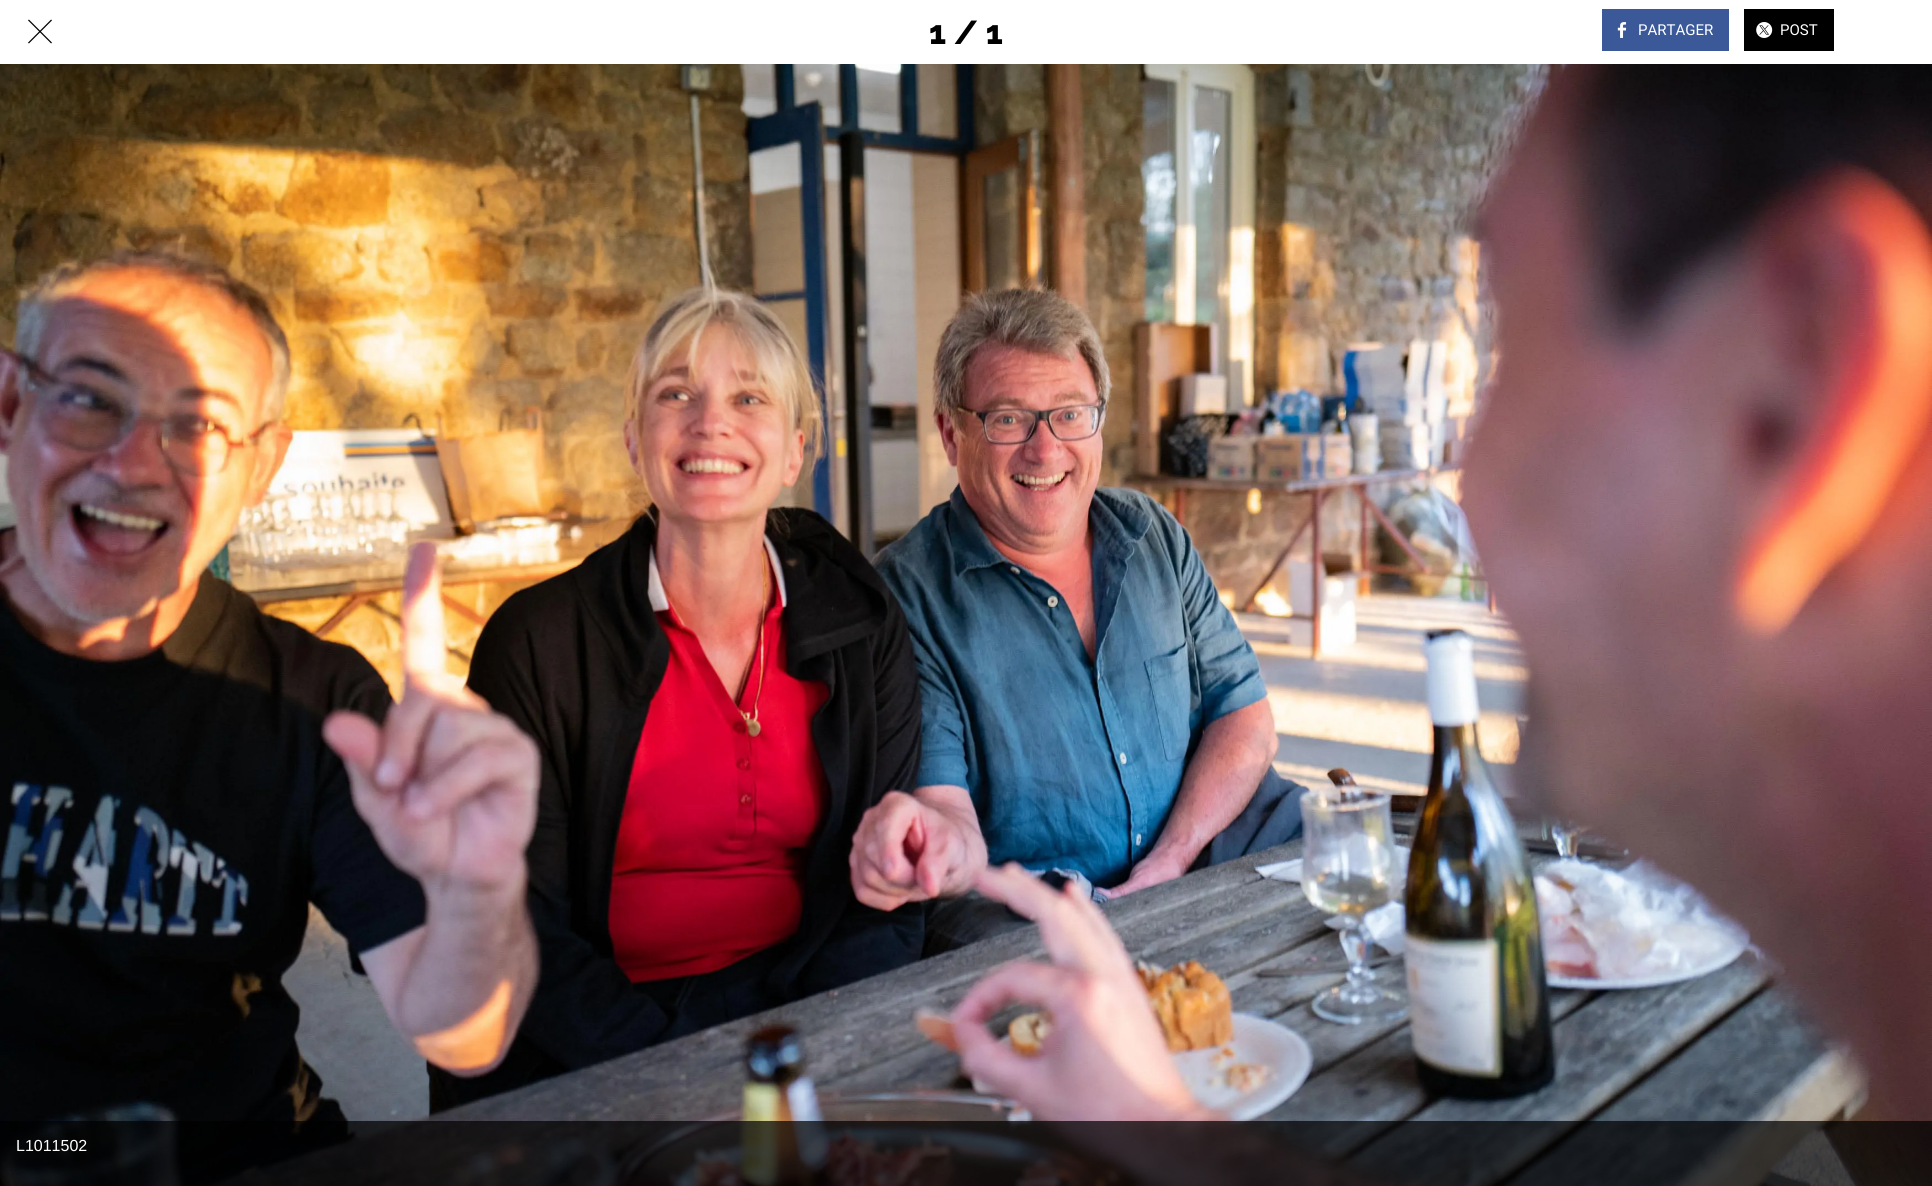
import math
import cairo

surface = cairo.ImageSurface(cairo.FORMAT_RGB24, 1932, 1186)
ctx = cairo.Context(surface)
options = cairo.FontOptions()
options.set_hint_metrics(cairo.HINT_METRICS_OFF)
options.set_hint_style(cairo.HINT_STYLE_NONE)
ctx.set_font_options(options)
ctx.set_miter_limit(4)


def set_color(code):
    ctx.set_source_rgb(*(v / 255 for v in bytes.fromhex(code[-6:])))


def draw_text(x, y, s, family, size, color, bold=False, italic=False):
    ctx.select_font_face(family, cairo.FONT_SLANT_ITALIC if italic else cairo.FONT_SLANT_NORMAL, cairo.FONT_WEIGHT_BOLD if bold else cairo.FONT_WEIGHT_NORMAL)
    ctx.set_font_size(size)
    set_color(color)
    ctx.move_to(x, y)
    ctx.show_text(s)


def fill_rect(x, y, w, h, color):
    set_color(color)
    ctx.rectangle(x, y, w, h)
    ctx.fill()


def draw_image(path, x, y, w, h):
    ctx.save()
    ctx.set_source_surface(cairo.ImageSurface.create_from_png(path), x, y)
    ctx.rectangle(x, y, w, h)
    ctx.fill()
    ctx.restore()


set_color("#ffffff")
ctx.paint()
draw_image("assets/img1.png", 28, 19, 24, 25)
draw_text(929, 44, "1 / 1", "Raleway ExtraBold", 33, "#000000")
fill_rect(1602, 9, 127, 42, "#3b5999")
draw_image("assets/img2.png", 1617, 22, 10, 16)
draw_text(1638, 35, "PARTAGER", "Roboto", 15, "#ffffff")
fill_rect(1744, 9, 90, 42, "#000000")
draw_image("assets/img3.png", 1756, 22, 17, 16)
draw_text(1780, 35, "POST", "Roboto", 15, "#ffffff")
draw_image("assets/img4.png", 0, 64, 1932, 1122)
ctx.set_source_rgba(0, 0, 0, 0.7)
ctx.rectangle(0, 1121, 1932, 65)
ctx.fill()
draw_text(16, 1151, "L1011502", "Liberation Sans", 16, "#ffffff")
surface.write_to_png("output.png")
